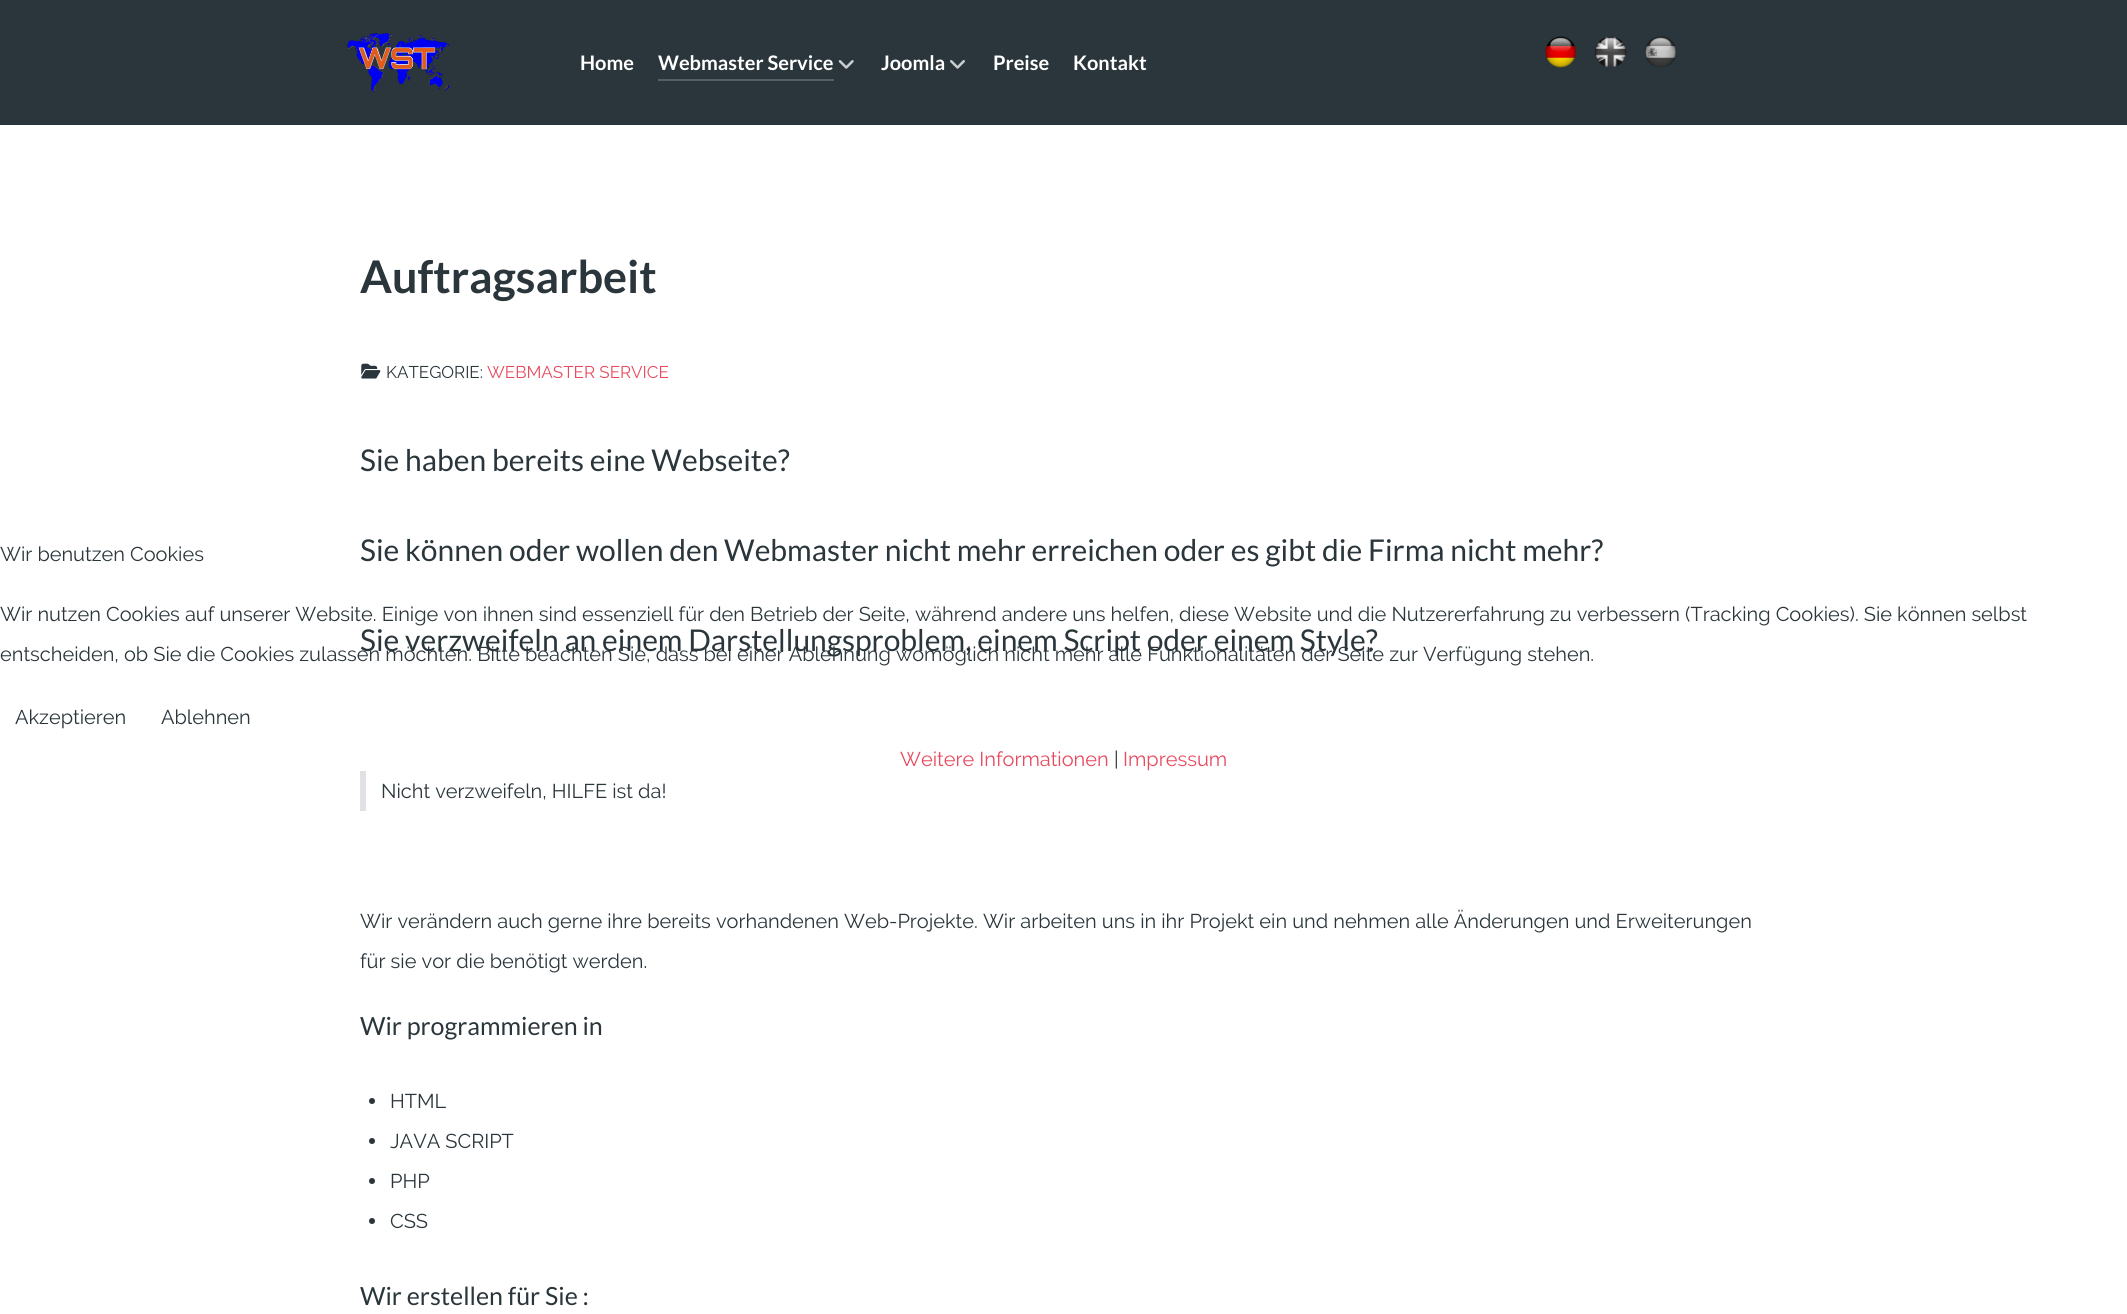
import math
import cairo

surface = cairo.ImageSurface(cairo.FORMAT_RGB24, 2127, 1314)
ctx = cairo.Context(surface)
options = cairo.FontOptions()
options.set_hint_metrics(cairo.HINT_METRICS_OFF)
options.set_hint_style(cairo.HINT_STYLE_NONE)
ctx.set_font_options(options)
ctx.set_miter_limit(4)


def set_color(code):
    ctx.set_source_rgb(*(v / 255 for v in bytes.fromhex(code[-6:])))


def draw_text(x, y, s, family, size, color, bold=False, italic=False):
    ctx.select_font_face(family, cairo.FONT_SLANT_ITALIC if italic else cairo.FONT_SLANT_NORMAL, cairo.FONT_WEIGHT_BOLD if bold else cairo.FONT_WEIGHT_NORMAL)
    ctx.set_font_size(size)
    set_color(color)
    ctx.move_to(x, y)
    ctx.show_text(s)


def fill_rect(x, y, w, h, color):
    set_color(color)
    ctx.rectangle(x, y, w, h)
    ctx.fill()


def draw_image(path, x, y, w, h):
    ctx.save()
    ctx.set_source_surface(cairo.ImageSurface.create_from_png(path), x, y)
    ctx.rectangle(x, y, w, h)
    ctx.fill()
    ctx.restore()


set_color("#ffffff")
ctx.paint()
fill_rect(0, 0, 2127, 125, "#2a363b")
draw_image("assets/img1.png", 346, 33, 104, 59)
draw_text(580, 70, "Home", "Lato", 20, "#ffffff", bold=True)
set_color("#555e62")
ctx.new_path()
ctx.move_to(658, 79)
ctx.line_to(658, 81)
ctx.line_to(834, 81)
ctx.line_to(834, 54)
ctx.line_to(834, 79)
ctx.close_path()
ctx.fill()
draw_text(658, 70, "Webmaster Service", "Lato", 20, "#ffffff", bold=True)
draw_image("assets/img2.png", 838, 60, 16, 9)
draw_text(881, 70, "Joomla", "Lato", 20, "#ffffff", bold=True)
draw_image("assets/img3.png", 950, 60, 15, 9)
draw_text(993, 70, "Preise", "Lato", 20, "#ffffff", bold=True)
draw_text(1073, 70, "Kontakt", "Lato", 20, "#ffffff", bold=True)
draw_image("assets/img4.png", 1545, 36, 32, 32)
draw_image("assets/img5.png", 1595, 36, 32, 32)
draw_image("assets/img6.png", 1645, 36, 32, 32)
draw_text(360, 293, "Auftragsarbeit", "Lato", 45, "#2a363b", bold=True)
draw_image("assets/img7.png", 361, 363, 20, 16)
draw_text(386, 378, "KATEGORIE:", "Raleway", 17, "#2a363b")
draw_text(487, 378, "WEBMASTER SERVICE", "Raleway", 17, "#e84a5f")
draw_text(360, 471, "Sie haben bereits eine Webseite?", "Lato", 30, "#2a363b")
draw_text(360, 561, "Sie können oder wollen den Webmaster nicht mehr erreichen oder es gibt die Firma nicht mehr?", "Lato", 30, "#2a363b")
draw_text(360, 651, "Sie verzweifeln an einem Darstellungsproblem, einem Script oder einem Style?", "Lato", 30, "#2a363b")
fill_rect(360, 771, 6, 40, "#e0e0e5")
draw_text(381, 798, "Nicht verzweifeln, HILFE ist da!", "Raleway", 20, "#2a363b")
draw_text(360, 928, "Wir verändern auch gerne ihre bereits vorhandenen Web-Projekte. Wir arbeiten uns in ihr Projekt ein und nehmen alle Änderungen und Erweiterungen", "Raleway", 20, "#2a363b")
draw_text(360, 968, "für sie vor die benötigt werden.", "Raleway", 20, "#2a363b")
draw_text(360, 1035, "Wir programmieren in", "Lato", 25, "#2a363b")
ctx.new_path()
ctx.arc(372, 1101, 3, 0, 2 * math.pi)
ctx.fill()
draw_text(390, 1108, "HTML", "Raleway", 20, "#2a363b")
ctx.new_path()
ctx.arc(372, 1141, 3, 0, 2 * math.pi)
ctx.fill()
draw_text(390, 1148, "JAVA SCRIPT", "Raleway", 20, "#2a363b")
ctx.new_path()
ctx.arc(372, 1181, 3, 0, 2 * math.pi)
ctx.fill()
draw_text(390, 1188, "PHP", "Raleway", 20, "#2a363b")
ctx.new_path()
ctx.arc(372, 1221, 3, 0, 2 * math.pi)
ctx.fill()
draw_text(390, 1228, "CSS", "Raleway", 20, "#2a363b")
draw_text(360, 1305, "Wir erstellen für Sie :", "Lato", 25, "#2a363b")
draw_text(0, 561, "Wir benutzen Cookies", "Raleway", 20, "#2a363b")
draw_text(0, 621, "Wir nutzen Cookies auf unserer Website. Einige von ihnen sind essenziell für den Betrieb der Seite, während andere uns helfen, diese Website und die Nutzererfahrung zu verbessern (Tracking Cookies). Sie können selbst", "Raleway", 20, "#2a363b")
draw_text(0, 661, "entscheiden, ob Sie die Cookies zulassen möchten. Bitte beachten Sie, dass bei einer Ablehnung womöglich nicht mehr alle Funktionalitäten der Seite zur Verfügung stehen.", "Raleway", 20, "#2a363b")
draw_text(15, 724, "Akzeptieren", "Raleway", 20, "#2a363b")
draw_text(161, 724, "Ablehnen", "Raleway", 20, "#2a363b")
draw_text(900, 766, "Weitere Informationen", "Raleway", 20, "#e84a5f")
draw_text(1114, 766, "|", "Raleway", 20, "#2a363b")
draw_text(1123, 766, "Impressum", "Raleway", 20, "#e84a5f")
surface.write_to_png("output.png")
